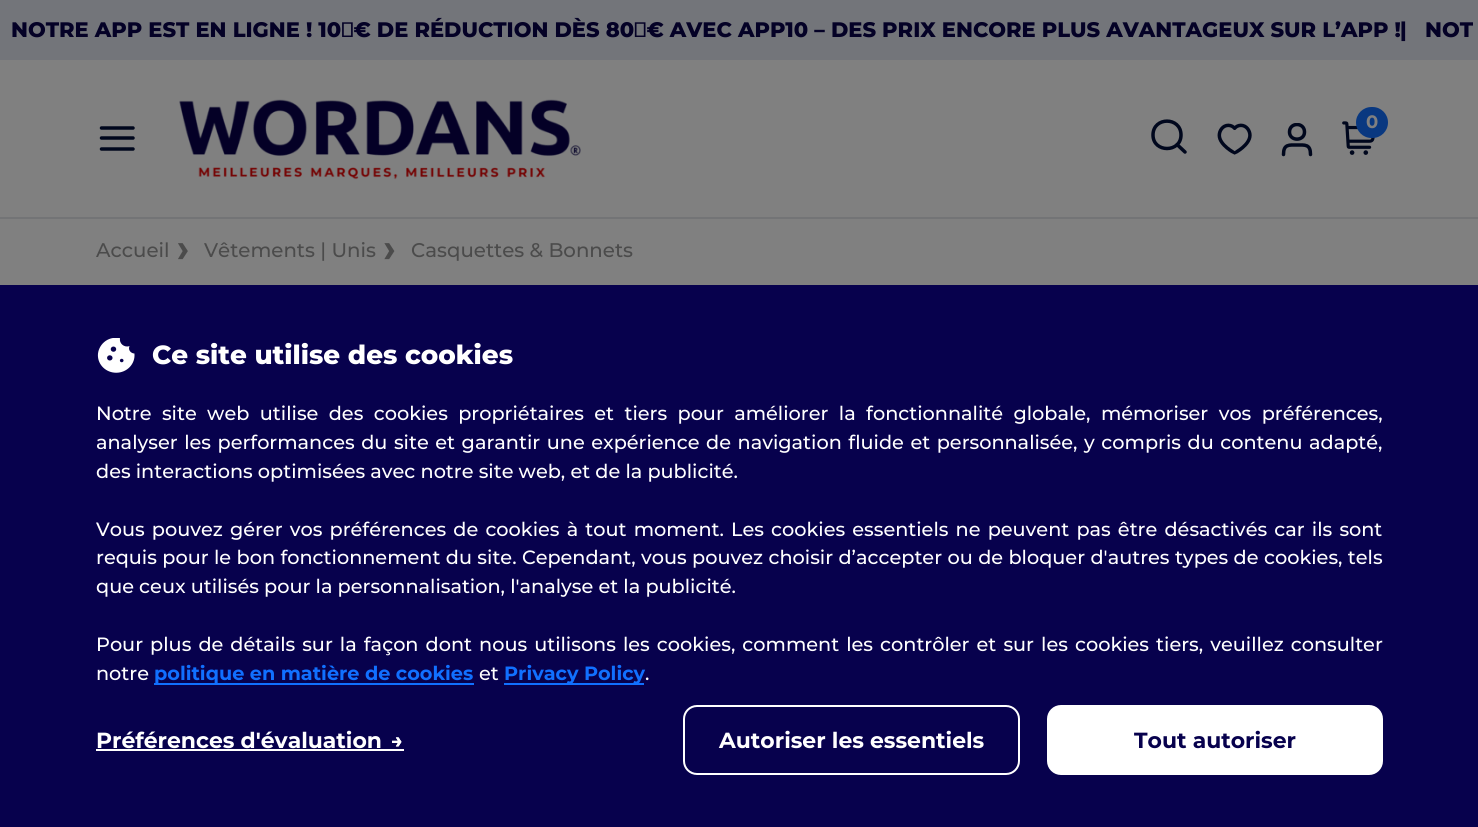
import math
import cairo

surface = cairo.ImageSurface(cairo.FORMAT_RGB24, 1478, 827)
ctx = cairo.Context(surface)
options = cairo.FontOptions()
options.set_hint_metrics(cairo.HINT_METRICS_OFF)
options.set_hint_style(cairo.HINT_STYLE_NONE)
ctx.set_font_options(options)
ctx.set_miter_limit(4)


def set_color(code):
    ctx.set_source_rgb(*(v / 255 for v in bytes.fromhex(code[-6:])))


def draw_text(x, y, s, family, size, color, bold=False, italic=False):
    ctx.select_font_face(family, cairo.FONT_SLANT_ITALIC if italic else cairo.FONT_SLANT_NORMAL, cairo.FONT_WEIGHT_BOLD if bold else cairo.FONT_WEIGHT_NORMAL)
    ctx.set_font_size(size)
    set_color(color)
    ctx.move_to(x, y)
    ctx.show_text(s)


def draw_spaced(x, y, s, letter, word):
    ctx.move_to(x, y)
    for ch in s:
        ctx.show_text(ch)
        ctx.rel_move_to(letter + word * (ch == ' '), 0)


def fill_rect(x, y, w, h, color):
    set_color(color)
    ctx.rectangle(x, y, w, h)
    ctx.fill()


def rounded_rect(x, y, w, h, r):
    ctx.new_sub_path()
    for i, (u, v) in enumerate([(x + w - r, y + h - r), (x + r, y + h - r), (x + r, y + r), (x + w - r, y + r)]):
        ctx.arc(u, v, r, i * math.pi / 2, (i + 1) * math.pi / 2)
    ctx.close_path()


def draw_image(path, x, y, w, h):
    ctx.save()
    ctx.set_source_surface(cairo.ImageSurface.create_from_png(path), x, y)
    ctx.rectangle(x, y, w, h)
    ctx.fill()
    ctx.restore()


set_color("#808080")
ctx.paint()
fill_rect(0, 0, 1478, 60, "#73757a")
draw_text(11, 37, "NOTRE APP EST EN LIGNE ! 10 € DE RÉDUCTION DÈS 80 € AVEC APP10 – DES PRIX ENCORE PLUS AVANTAGEUX SUR L’APP !", "Montserrat ExtraBold", 21, "#040126")
draw_text(1400, 37, "|", "Montserrat ExtraBold", 21, "#040126")
draw_text(1425, 37, "NOT", "Montserrat ExtraBold", 21, "#040126")
ctx.new_path()
ctx.move_to(101.5, 138)
ctx.line_to(133, 138)
ctx.move_to(101.5, 128)
ctx.line_to(133, 128)
ctx.move_to(101.5, 149)
ctx.line_to(133, 149)
set_color("#00071d")
ctx.set_line_width(3.5)
ctx.set_line_cap(cairo.LINE_CAP_ROUND)
ctx.set_line_join(cairo.LINE_JOIN_ROUND)
ctx.stroke()
draw_image("assets/img1.png", 179, 99, 402, 81)
ctx.new_path()
ctx.move_to(1185, 152)
ctx.line_to(1177, 144.5)
ctx.move_to(1181, 135)
ctx.curve_to(1181, 153, 1153, 153, 1153, 135)
ctx.curve_to(1153, 116.5, 1181, 116.5, 1181, 135)
ctx.close_path()
ctx.stroke()
draw_image("assets/img2.png", 1217, 123, 35, 32)
ctx.save()
ctx.rectangle(1281, 123, 32, 35)
ctx.clip()
ctx.new_path()
ctx.move_to(1310.5, 154.5)
ctx.curve_to(1310.5, 144, 1305, 145, 1297, 145)
ctx.curve_to(1289, 145, 1283.5, 144, 1283.5, 154.5)
ctx.move_to(1304.5, 132)
ctx.curve_to(1304.5, 141.5, 1289.5, 141.5, 1289.5, 132)
ctx.curve_to(1289.5, 122, 1304.5, 122, 1304.5, 132)
ctx.close_path()
ctx.stroke()
ctx.restore()
draw_image("assets/img3.png", 1342, 121, 34, 34)
set_color("#093880")
rounded_rect(1356, 107, 32, 31, 15.5)
ctx.fill()
draw_text(1366, 128, "0", "Montserrat", 18, "#808080", bold=True)
fill_rect(0, 217, 1478, 2, "#737476")
draw_text(96, 257, "Accueil", "Montserrat Medium", 19.75, "#4b4b4b")
draw_image("assets/img4.png", 178, 243, 10, 17)
draw_text(204, 257, "Vêtements | Unis", "Montserrat Medium", 19.75, "#4b4b4b")
draw_image("assets/img5.png", 384, 243, 11, 17)
draw_text(411, 257, "Casquettes & Bonnets", "Montserrat Medium", 19.75, "#4b4b4b")
fill_rect(0, 285, 1478, 542, "#07014d")
draw_image("assets/img6.png", 97, 338, 38, 35)
draw_text(152, 364, "Ce site utilise des cookies", "Montserrat ExtraBold", 26.25, "#ffffff")
ctx.select_font_face("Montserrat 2 Medium")
ctx.set_font_size(19.25)
draw_spaced(96, 420, "Notre site web utilise des cookies propriétaires et tiers pour améliorer la fonctionnalité globale, mémoriser vos préférences,", 0, 5.25)
draw_spaced(96, 449, "analyser les performances du site et garantir une expérience de navigation fluide et personnalisée, y compris du contenu adapté,", 0, 1.4)
draw_text(96, 478, "des interactions optimisées avec notre site web, et de la publicité.", "Montserrat 2 Medium", 19.25, "#ffffff")
draw_spaced(96, 536, "Vous pouvez gérer vos préférences de cookies à tout moment. Les cookies essentiels ne peuvent pas être désactivés car ils sont", 0, 2)
draw_spaced(96, 564, "requis pour le bon fonctionnement du site. Cependant, vous pouvez choisir d’accepter ou de bloquer d'autres types de cookies, tels", 0, 0.25)
draw_text(96, 593, "que ceux utilisés pour la personnalisation, l'analyse et la publicité.", "Montserrat 2 Medium", 19.25, "#ffffff")
draw_spaced(96, 651, "Pour plus de détails sur la façon dont nous utilisons les cookies, comment les contrôler et sur les cookies tiers, veuillez consulter", 0, 1.9)
draw_text(96, 680, "notre", "Montserrat 2 Medium", 19.25, "#ffffff")
fill_rect(154, 683, 320, 2, "#1170ff")
draw_text(154, 680, "politique en matière de cookies", "Montserrat", 19.25, "#1170ff", bold=True)
draw_text(479, 680, "et", "Montserrat 2 Medium", 19.25, "#ffffff")
fill_rect(504, 683, 140, 2, "#1170ff")
draw_text(504, 680, "Privacy Policy", "Montserrat", 19.25, "#1170ff", bold=True)
draw_text(645, 680, ".", "Montserrat 2 Medium", 19.25, "#ffffff")
draw_text(96, 748, "Préférences d'évaluation", "Montserrat", 21.9, "#ffffff", bold=True)
draw_image("assets/img7.png", 392, 737, 10, 10)
fill_rect(96, 749, 308, 2, "#ffffff")
rounded_rect(684, 706, 335, 68, 13)
ctx.set_line_width(2)
ctx.set_line_cap(cairo.LINE_CAP_BUTT)
ctx.set_line_join(cairo.LINE_JOIN_MITER)
ctx.stroke()
draw_text(719, 748, "Autoriser les essentiels", "Montserrat", 21.9, "#ffffff", bold=True)
rounded_rect(1047, 705, 336, 70, 14)
ctx.fill()
draw_text(1134, 748, "Tout autoriser", "Montserrat", 21.9, "#07014d", bold=True)
surface.write_to_png("output.png")
